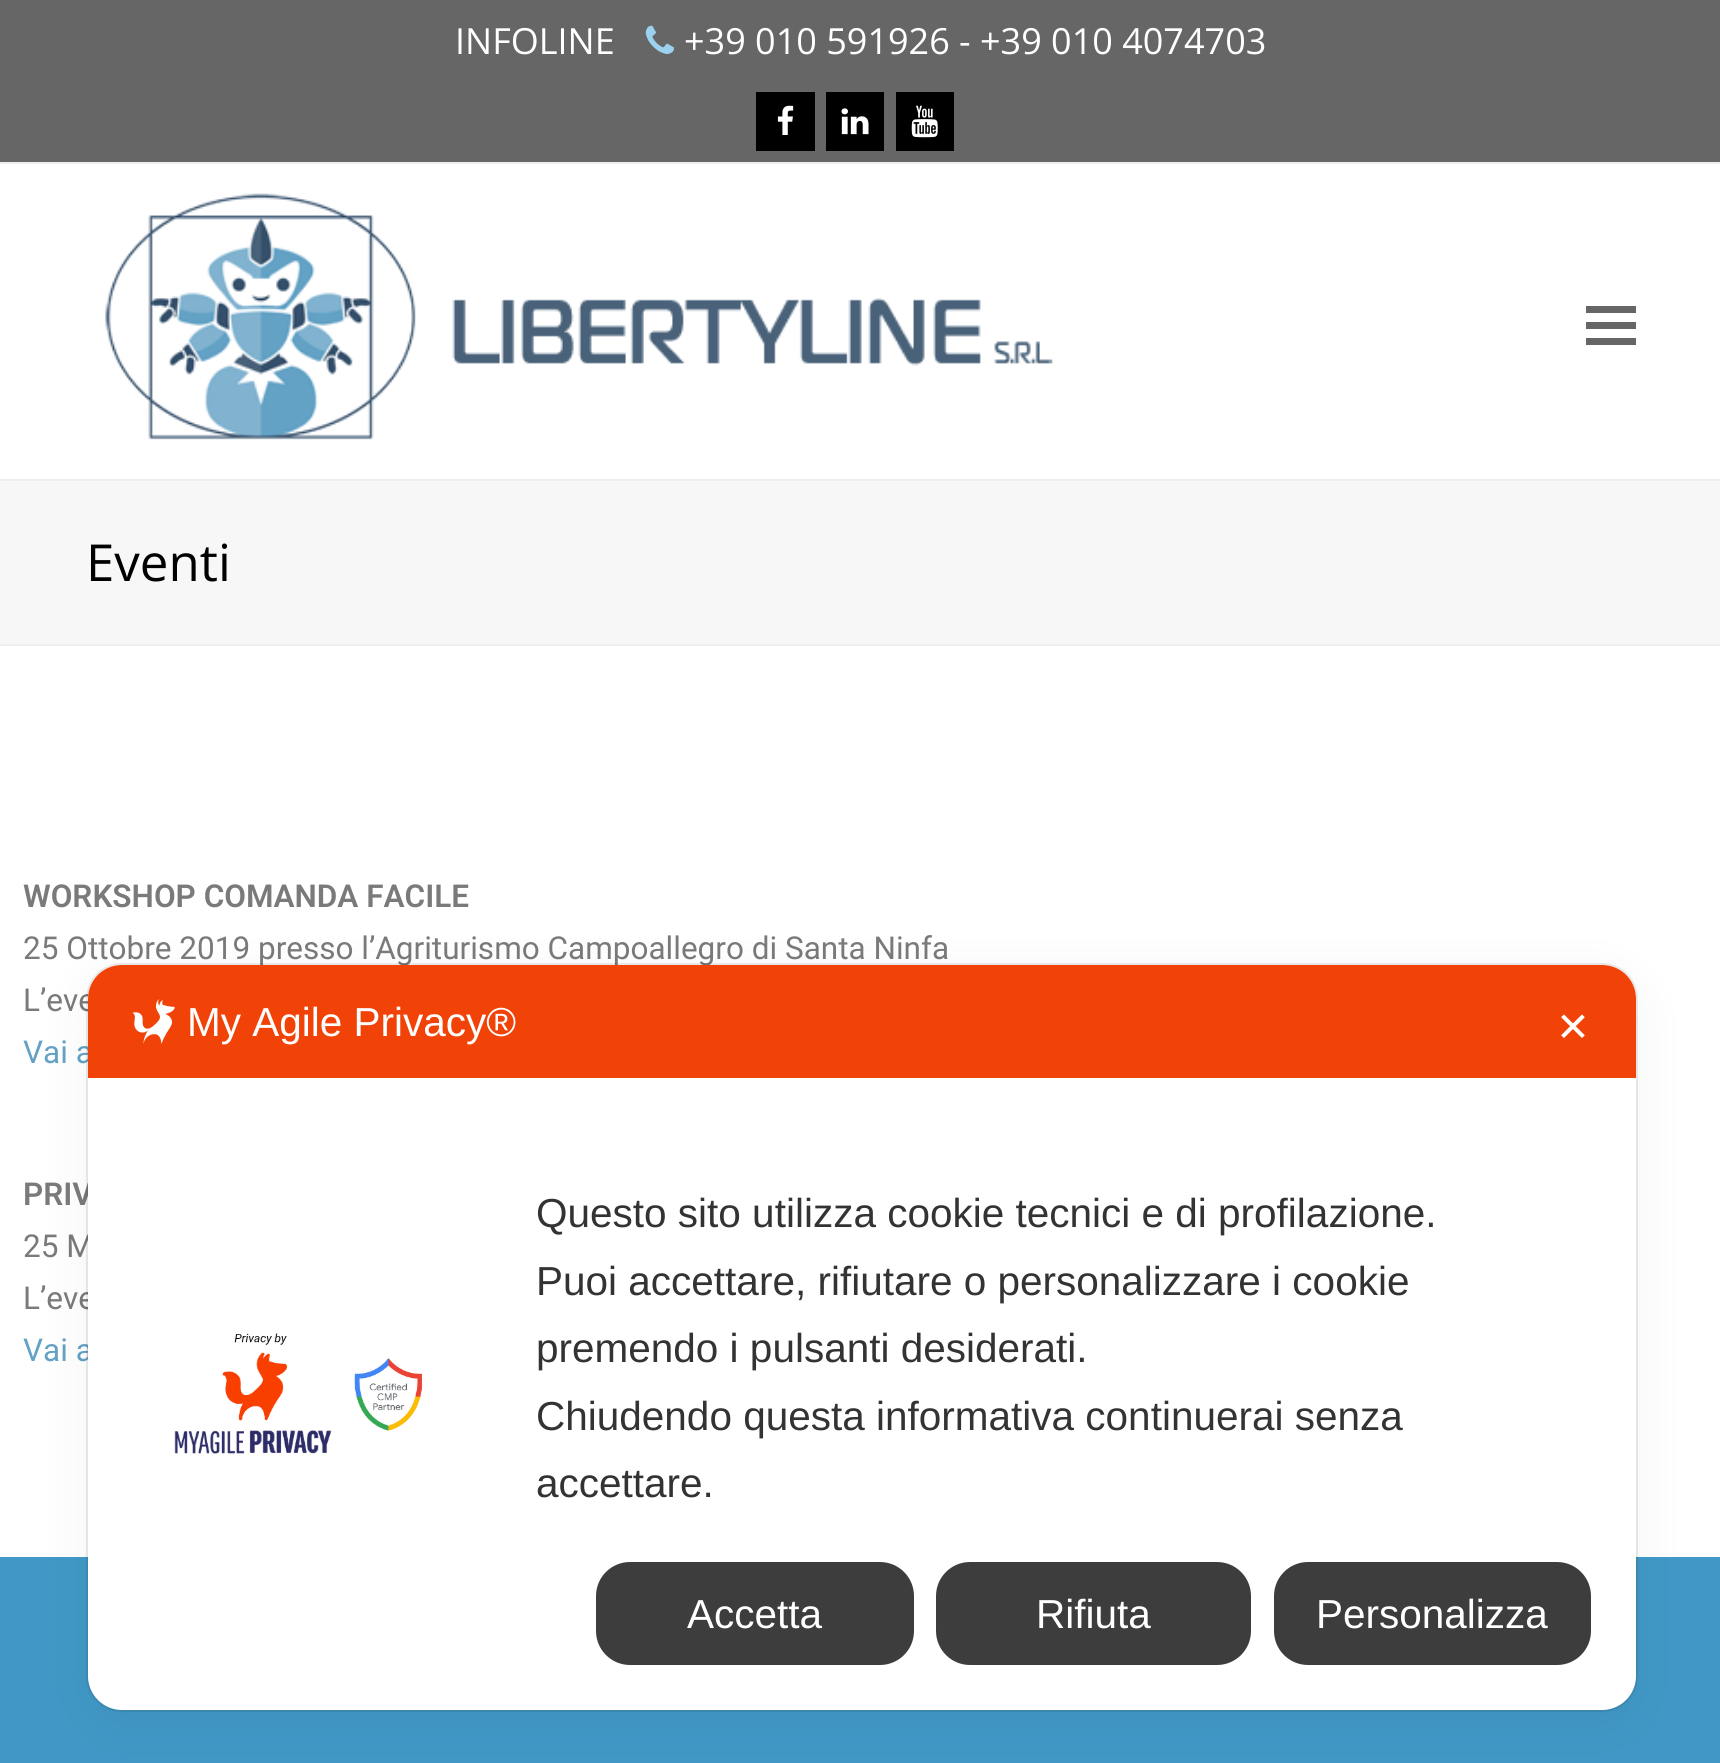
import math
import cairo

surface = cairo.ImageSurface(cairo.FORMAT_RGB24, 1720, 1763)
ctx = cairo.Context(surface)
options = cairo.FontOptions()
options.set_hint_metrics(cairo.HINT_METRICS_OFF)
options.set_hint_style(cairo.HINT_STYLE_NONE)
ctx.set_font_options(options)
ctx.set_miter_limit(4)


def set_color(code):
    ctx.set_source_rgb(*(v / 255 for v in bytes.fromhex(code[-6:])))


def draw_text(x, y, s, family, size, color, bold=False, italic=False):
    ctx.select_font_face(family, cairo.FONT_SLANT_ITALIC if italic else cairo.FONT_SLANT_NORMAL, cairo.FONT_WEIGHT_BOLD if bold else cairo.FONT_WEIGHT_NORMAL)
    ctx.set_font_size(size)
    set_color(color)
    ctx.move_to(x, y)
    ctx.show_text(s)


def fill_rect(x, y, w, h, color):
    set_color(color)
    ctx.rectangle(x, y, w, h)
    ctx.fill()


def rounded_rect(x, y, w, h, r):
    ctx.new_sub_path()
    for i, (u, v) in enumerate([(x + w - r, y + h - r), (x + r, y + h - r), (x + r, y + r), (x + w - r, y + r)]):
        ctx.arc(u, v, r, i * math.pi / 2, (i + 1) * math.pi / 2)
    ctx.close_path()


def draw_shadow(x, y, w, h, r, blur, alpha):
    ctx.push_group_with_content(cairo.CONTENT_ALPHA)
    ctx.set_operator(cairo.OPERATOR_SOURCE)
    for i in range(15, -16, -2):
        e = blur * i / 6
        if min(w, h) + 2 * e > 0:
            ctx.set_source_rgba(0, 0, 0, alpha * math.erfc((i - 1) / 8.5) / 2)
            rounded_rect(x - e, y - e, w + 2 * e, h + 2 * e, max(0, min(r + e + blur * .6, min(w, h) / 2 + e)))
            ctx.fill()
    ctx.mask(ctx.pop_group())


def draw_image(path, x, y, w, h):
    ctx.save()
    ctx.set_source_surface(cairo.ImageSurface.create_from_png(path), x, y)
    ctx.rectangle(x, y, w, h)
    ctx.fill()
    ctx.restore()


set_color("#ffffff")
ctx.paint()
fill_rect(0, 0, 1720, 162, "#666666")
fill_rect(0, 162, 1720, 2, "#eeeeee")
draw_text(455, 54, "INFOLINE", "Open Sans", 36, "#ffffff")
draw_image("assets/img1.png", 645, 25, 29, 29)
draw_text(684, 54, "+39 010 591926 - +39 010 4074703", "Open Sans", 36, "#ffffff")
fill_rect(756, 92, 59, 59, "#000000")
draw_image("assets/img2.png", 777, 105, 17, 30)
fill_rect(826, 92, 58, 59, "#000000")
draw_image("assets/img3.png", 841, 108, 28, 27)
fill_rect(896, 92, 58, 59, "#000000")
draw_image("assets/img4.png", 911, 105, 27, 33)
draw_image("assets/img5.png", 105, 193, 948, 247)
fill_rect(1586, 322, 50, 7, "#666666")
fill_rect(1586, 306, 50, 7, "#666666")
fill_rect(1586, 338, 50, 7, "#666666")
fill_rect(0, 481, 1720, 163, "#f7f7f7")
fill_rect(0, 479, 1720, 2, "#eeeeee")
fill_rect(0, 644, 1720, 2, "#eeeeee")
draw_text(86, 581, "Eventi", "Open Sans", 51, "#000000")
draw_text(23, 907, "WORKSHOP COMANDA FACILE", "Roboto SemiBold", 31.5, "#7a7a7a")
draw_text(23, 959, "25 Ottobre 2019 presso l’Agriturismo Campoallegro di Santa Ninfa", "Roboto", 31.5, "#7a7a7a")
draw_text(23, 1011, "L’eve", "Roboto", 31.5, "#7a7a7a")
draw_text(23, 1063, "Vai a", "Roboto", 31.5, "#63a2c5")
draw_text(23, 1205, "PRIV", "Roboto SemiBold", 31.5, "#7a7a7a")
draw_text(23, 1257, "25 M", "Roboto", 31.5, "#7a7a7a")
draw_text(23, 1309, "L’eve", "Roboto", 31.5, "#7a7a7a")
draw_text(23, 1361, "Vai a", "Roboto", 31.5, "#63a2c5")
fill_rect(0, 1557, 1720, 206, "#4198c6")
rounded_rect(87, 964, 1550, 747, 35)
ctx.set_source_rgba(0, 0, 0, 0.08)
ctx.stroke()
set_color("#000000")
draw_shadow(88, 979, 1548, 745, 34, 27, 0.05)
set_color("#ffffff")
rounded_rect(88, 965, 1548, 745, 34)
ctx.fill()
set_color("#f14307")
ctx.new_path()
ctx.move_to(122, 965)
ctx.line_to(1602, 965)
ctx.curve_to(1621, 965, 1636, 980, 1636, 999)
ctx.line_to(1636, 1078)
ctx.line_to(88, 1078)
ctx.line_to(88, 999)
ctx.curve_to(88, 980, 103, 965, 122, 965)
ctx.close_path()
ctx.fill()
draw_image("assets/img6.png", 133, 999, 42, 45)
draw_text(187, 1036, "My Agile Privacy®", "Liberation Sans", 40.5, "#ffffff")
draw_text(1556, 1041, "✕", "DejaVu Sans", 40.5, "#ffffff")
draw_image("assets/img7.png", 174, 1333, 249, 121)
draw_text(536, 1227, "Questo sito utilizza cookie tecnici e di profilazione.", "Liberation Sans", 40.5, "#333333")
draw_text(536, 1295, "Puoi accettare, rifiutare o personalizzare i cookie", "Liberation Sans", 40.5, "#333333")
draw_text(536, 1362, "premendo i pulsanti desiderati.", "Liberation Sans", 40.5, "#333333")
draw_text(536, 1430, "Chiudendo questa informativa continuerai senza", "Liberation Sans", 40.5, "#333333")
draw_text(536, 1497, "accettare.", "Liberation Sans", 40.5, "#333333")
set_color("#3d3d3d")
rounded_rect(596, 1562, 318, 103, 34)
ctx.fill()
draw_text(687, 1628, "Accetta", "Liberation Sans", 40.5, "#ffffff")
set_color("#3d3d3d")
rounded_rect(936, 1562, 315, 103, 34)
ctx.fill()
draw_text(1036, 1628, "Rifiuta", "Liberation Sans", 40.5, "#ffffff")
set_color("#3d3d3d")
rounded_rect(1274, 1562, 317, 103, 34)
ctx.fill()
draw_text(1316, 1628, "Personalizza", "Liberation Sans", 40.5, "#ffffff")
surface.write_to_png("output.png")
